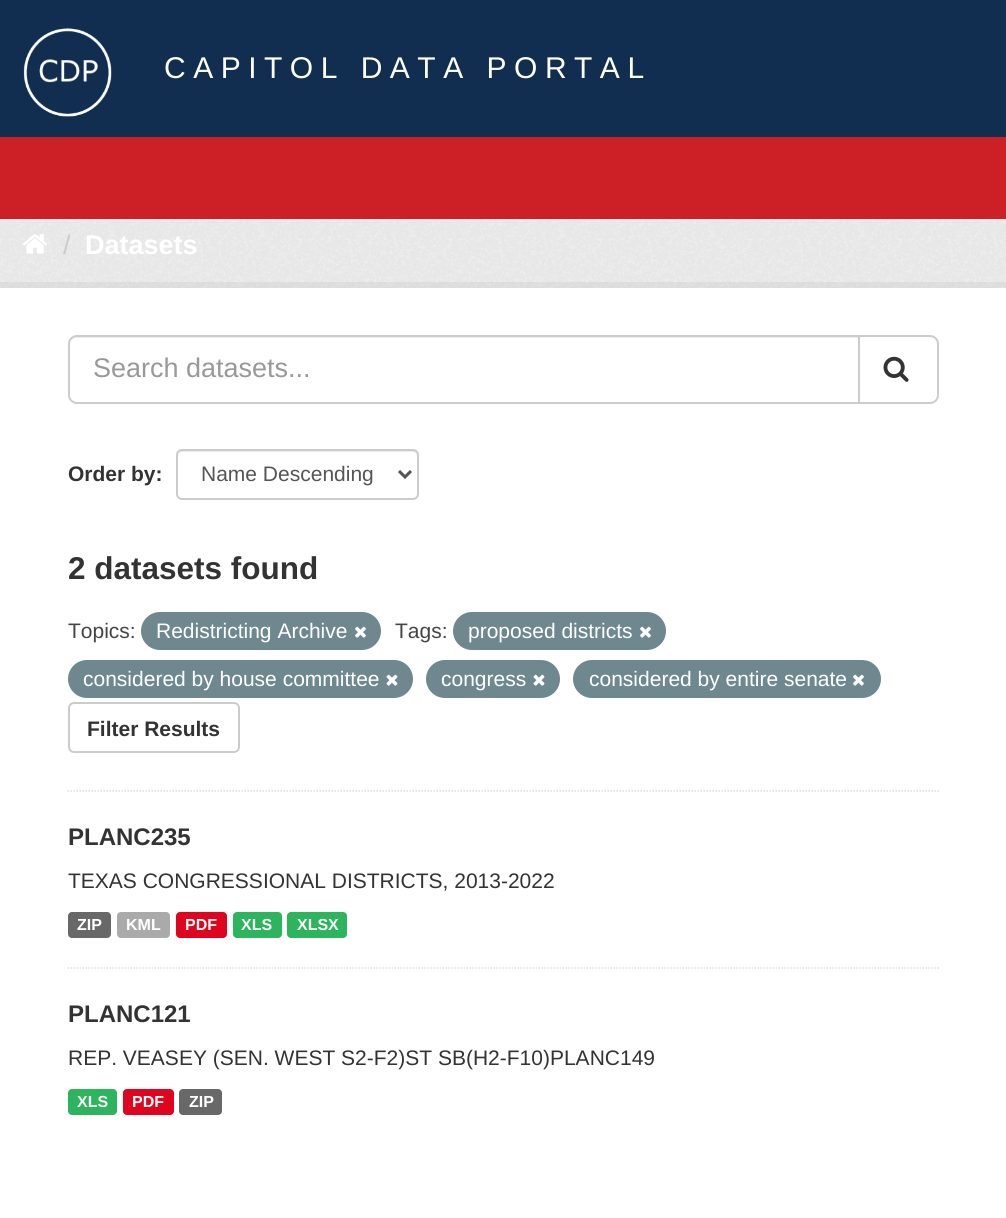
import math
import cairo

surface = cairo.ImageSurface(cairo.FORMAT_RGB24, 1006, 1218)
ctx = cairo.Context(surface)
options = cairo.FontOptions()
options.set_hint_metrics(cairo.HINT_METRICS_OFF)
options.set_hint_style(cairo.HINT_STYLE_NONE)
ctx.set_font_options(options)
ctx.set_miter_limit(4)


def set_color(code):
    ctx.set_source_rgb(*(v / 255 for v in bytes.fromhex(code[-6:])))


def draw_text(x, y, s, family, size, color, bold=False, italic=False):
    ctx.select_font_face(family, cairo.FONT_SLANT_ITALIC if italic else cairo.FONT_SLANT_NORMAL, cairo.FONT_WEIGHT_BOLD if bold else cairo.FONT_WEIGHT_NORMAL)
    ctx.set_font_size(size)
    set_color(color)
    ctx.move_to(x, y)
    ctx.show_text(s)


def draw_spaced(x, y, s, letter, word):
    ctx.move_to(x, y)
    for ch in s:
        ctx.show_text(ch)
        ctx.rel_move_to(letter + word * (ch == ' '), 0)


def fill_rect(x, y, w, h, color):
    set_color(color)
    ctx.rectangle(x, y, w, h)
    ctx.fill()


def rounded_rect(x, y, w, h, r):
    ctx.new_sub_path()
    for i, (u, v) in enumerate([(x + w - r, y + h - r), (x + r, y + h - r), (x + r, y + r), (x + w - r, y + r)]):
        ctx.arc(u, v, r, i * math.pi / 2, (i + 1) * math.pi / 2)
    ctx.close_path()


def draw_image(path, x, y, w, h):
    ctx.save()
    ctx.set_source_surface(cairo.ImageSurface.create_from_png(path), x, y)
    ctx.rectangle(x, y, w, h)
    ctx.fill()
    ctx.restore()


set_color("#eeeeee")
ctx.paint()
draw_image("assets/img1.png", 0, 219, 1006, 69)
fill_rect(0, 0, 1006, 137, "#112e51")
draw_image("assets/img2.png", 23, 28, 89, 89)
ctx.select_font_face("Liberation Sans")
ctx.set_font_size(30)
set_color("#ffffff")
draw_spaced(164, 78, "CAPITOL DATA PORTAL", 7.5, 0)
fill_rect(0, 137, 1006, 82, "#cd2026")
draw_image("assets/img3.png", 23, 234, 24, 20)
draw_text(63, 254, "/", "Liberation Sans", 27, "#cccccc")
draw_text(85, 254, "Datasets", "Liberation Sans", 27, "#ffffff", bold=True)
ctx.rectangle(-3, 285, 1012, 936)
ctx.set_source_rgba(0, 0, 0, 0.05)
ctx.set_line_width(6)
ctx.stroke()
fill_rect(0, 288, 1006, 930, "#ffffff")
ctx.new_path()
ctx.move_to(67.5, 791)
ctx.line_to(939, 791)
set_color("#dddddd")
ctx.set_line_width(1.5)
ctx.set_dash([1.5, 1.5])
ctx.stroke()
set_color("#ececec")
ctx.new_path()
ctx.move_to(76, 338)
ctx.line_to(858, 338)
ctx.line_to(858, 336)
ctx.line_to(77, 336)
ctx.curve_to(72, 336, 69, 340, 69, 345)
ctx.curve_to(69, 341, 72, 338, 76, 338)
ctx.close_path()
ctx.fill()
ctx.new_path()
ctx.move_to(77, 336)
ctx.line_to(859, 336)
ctx.line_to(859, 403)
ctx.line_to(77, 403)
ctx.curve_to(72.5, 403, 69, 399.5, 69, 395)
ctx.line_to(69, 344)
ctx.curve_to(69, 339.5, 72.5, 336, 77, 336)
ctx.close_path()
set_color("#cccccc")
ctx.set_line_width(2)
ctx.set_dash([])
ctx.stroke()
draw_text(93, 377, "Search datasets...", "Liberation Sans", 27, "#999999")
set_color("#ffffff")
ctx.new_path()
ctx.move_to(859, 336)
ctx.line_to(930, 336)
ctx.curve_to(934.5, 336, 938, 339.5, 938, 344)
ctx.line_to(938, 395)
ctx.curve_to(938, 399.5, 934.5, 403, 930, 403)
ctx.line_to(859, 403)
ctx.close_path()
ctx.fill_preserve()
set_color("#cccccc")
ctx.stroke()
draw_image("assets/img4.png", 883, 356, 26, 26)
draw_text(68, 481, "Order by:", "Liberation Sans", 21, "#333333", bold=True)
set_color("#ececec")
ctx.new_path()
ctx.move_to(182, 452)
ctx.line_to(412, 452)
ctx.curve_to(415, 452, 417, 454, 417, 456)
ctx.line_to(417, 455)
ctx.curve_to(417, 452, 415, 450, 412, 450)
ctx.line_to(182, 450)
ctx.curve_to(179, 450, 177, 452, 177, 455)
ctx.line_to(177, 456)
ctx.curve_to(177, 454, 179, 452, 182, 452)
ctx.close_path()
ctx.fill()
rounded_rect(177, 450, 241, 49, 5)
set_color("#cccccc")
ctx.stroke()
ctx.new_path()
ctx.move_to(399, 471)
ctx.line_to(405, 477)
ctx.line_to(411, 471)
set_color("#555555")
ctx.set_line_width(3)
ctx.stroke()
draw_text(201, 481, "Name Descending", "Liberation Sans", 21, "#555555")
draw_text(68, 579, "2 datasets found", "Liberation Sans", 31.5, "#333333", bold=True)
draw_text(68, 638, "Topics:", "Liberation Sans", 21, "#444444")
set_color("#6f8890")
rounded_rect(141, 612, 240, 38, 19)
ctx.fill()
draw_text(156, 638, "Redistricting Archive", "Liberation Sans", 21, "#ffffff")
draw_image("assets/img5.png", 355, 626, 11, 12)
draw_text(395, 638, "Tags:", "Liberation Sans", 21, "#444444")
set_color("#6f8890")
rounded_rect(453, 612, 213, 38, 19)
ctx.fill()
draw_text(468, 638, "proposed districts", "Liberation Sans", 21, "#ffffff")
draw_image("assets/img5.png", 640, 626, 11, 12)
set_color("#6f8890")
rounded_rect(68, 660, 345, 38, 19)
ctx.fill()
draw_text(83, 686, "considered by house committee", "Liberation Sans", 21, "#ffffff")
draw_image("assets/img6.png", 386, 674, 12, 12)
set_color("#6f8890")
rounded_rect(426, 660, 134, 38, 19)
ctx.fill()
draw_text(441, 686, "congress", "Liberation Sans", 21, "#ffffff")
draw_image("assets/img6.png", 533, 674, 12, 12)
set_color("#6f8890")
rounded_rect(573, 660, 308, 38, 19)
ctx.fill()
draw_text(589, 686, "considered by entire senate", "Liberation Sans", 21, "#ffffff")
draw_image("assets/img5.png", 853, 674, 11, 12)
rounded_rect(69, 703, 170, 49, 5)
set_color("#cccccc")
ctx.set_line_width(2)
ctx.stroke()
draw_text(87, 736, "Filter Results", "Liberation Sans", 21, "#333333", bold=True)
ctx.new_path()
ctx.move_to(67.5, 968)
ctx.line_to(939, 968)
set_color("#dddddd")
ctx.set_line_width(1.5)
ctx.set_dash([1.5, 1.5])
ctx.stroke()
draw_text(68, 845, "PLANC235", "Liberation Sans", 24, "#333333", bold=True)
draw_text(68, 888, "TEXAS CONGRESSIONAL DISTRICTS, 2013-2022", "Liberation Sans", 21, "#333333")
set_color("#686868")
rounded_rect(68, 912, 43, 26, 4)
ctx.fill()
draw_text(77, 930, "ZIP", "Liberation Sans", 16, "#ffffff", bold=True)
set_color("#aaaaaa")
rounded_rect(117, 912, 53, 26, 4)
ctx.fill()
draw_text(126, 930, "KML", "Liberation Sans", 16, "#ffffff", bold=True)
set_color("#e0051e")
rounded_rect(176, 912, 51, 26, 4)
ctx.fill()
draw_text(185, 930, "PDF", "Liberation Sans", 16, "#ffffff", bold=True)
set_color("#2db55d")
rounded_rect(233, 912, 49, 26, 4)
ctx.fill()
draw_text(241, 930, "XLS", "Liberation Sans", 16, "#ffffff", bold=True)
set_color("#2db55d")
rounded_rect(287, 912, 60, 26, 4)
ctx.fill()
draw_text(297, 930, "XLSX", "Liberation Sans", 16, "#ffffff", bold=True)
draw_text(68, 1022, "PLANC121", "Liberation Sans", 24, "#333333", bold=True)
draw_text(68, 1065, "REP. VEASEY (SEN. WEST S2-F2)ST SB(H2-F10)PLANC149", "Liberation Sans", 21, "#333333")
set_color("#2db55d")
rounded_rect(68, 1089, 49, 26, 4)
ctx.fill()
draw_text(77, 1107, "XLS", "Liberation Sans", 16, "#ffffff", bold=True)
set_color("#e0051e")
rounded_rect(123, 1089, 51, 26, 4)
ctx.fill()
draw_text(132, 1107, "PDF", "Liberation Sans", 16, "#ffffff", bold=True)
set_color("#686868")
rounded_rect(179, 1089, 43, 26, 4)
ctx.fill()
draw_text(189, 1107, "ZIP", "Liberation Sans", 16, "#ffffff", bold=True)
surface.write_to_png("output.png")
